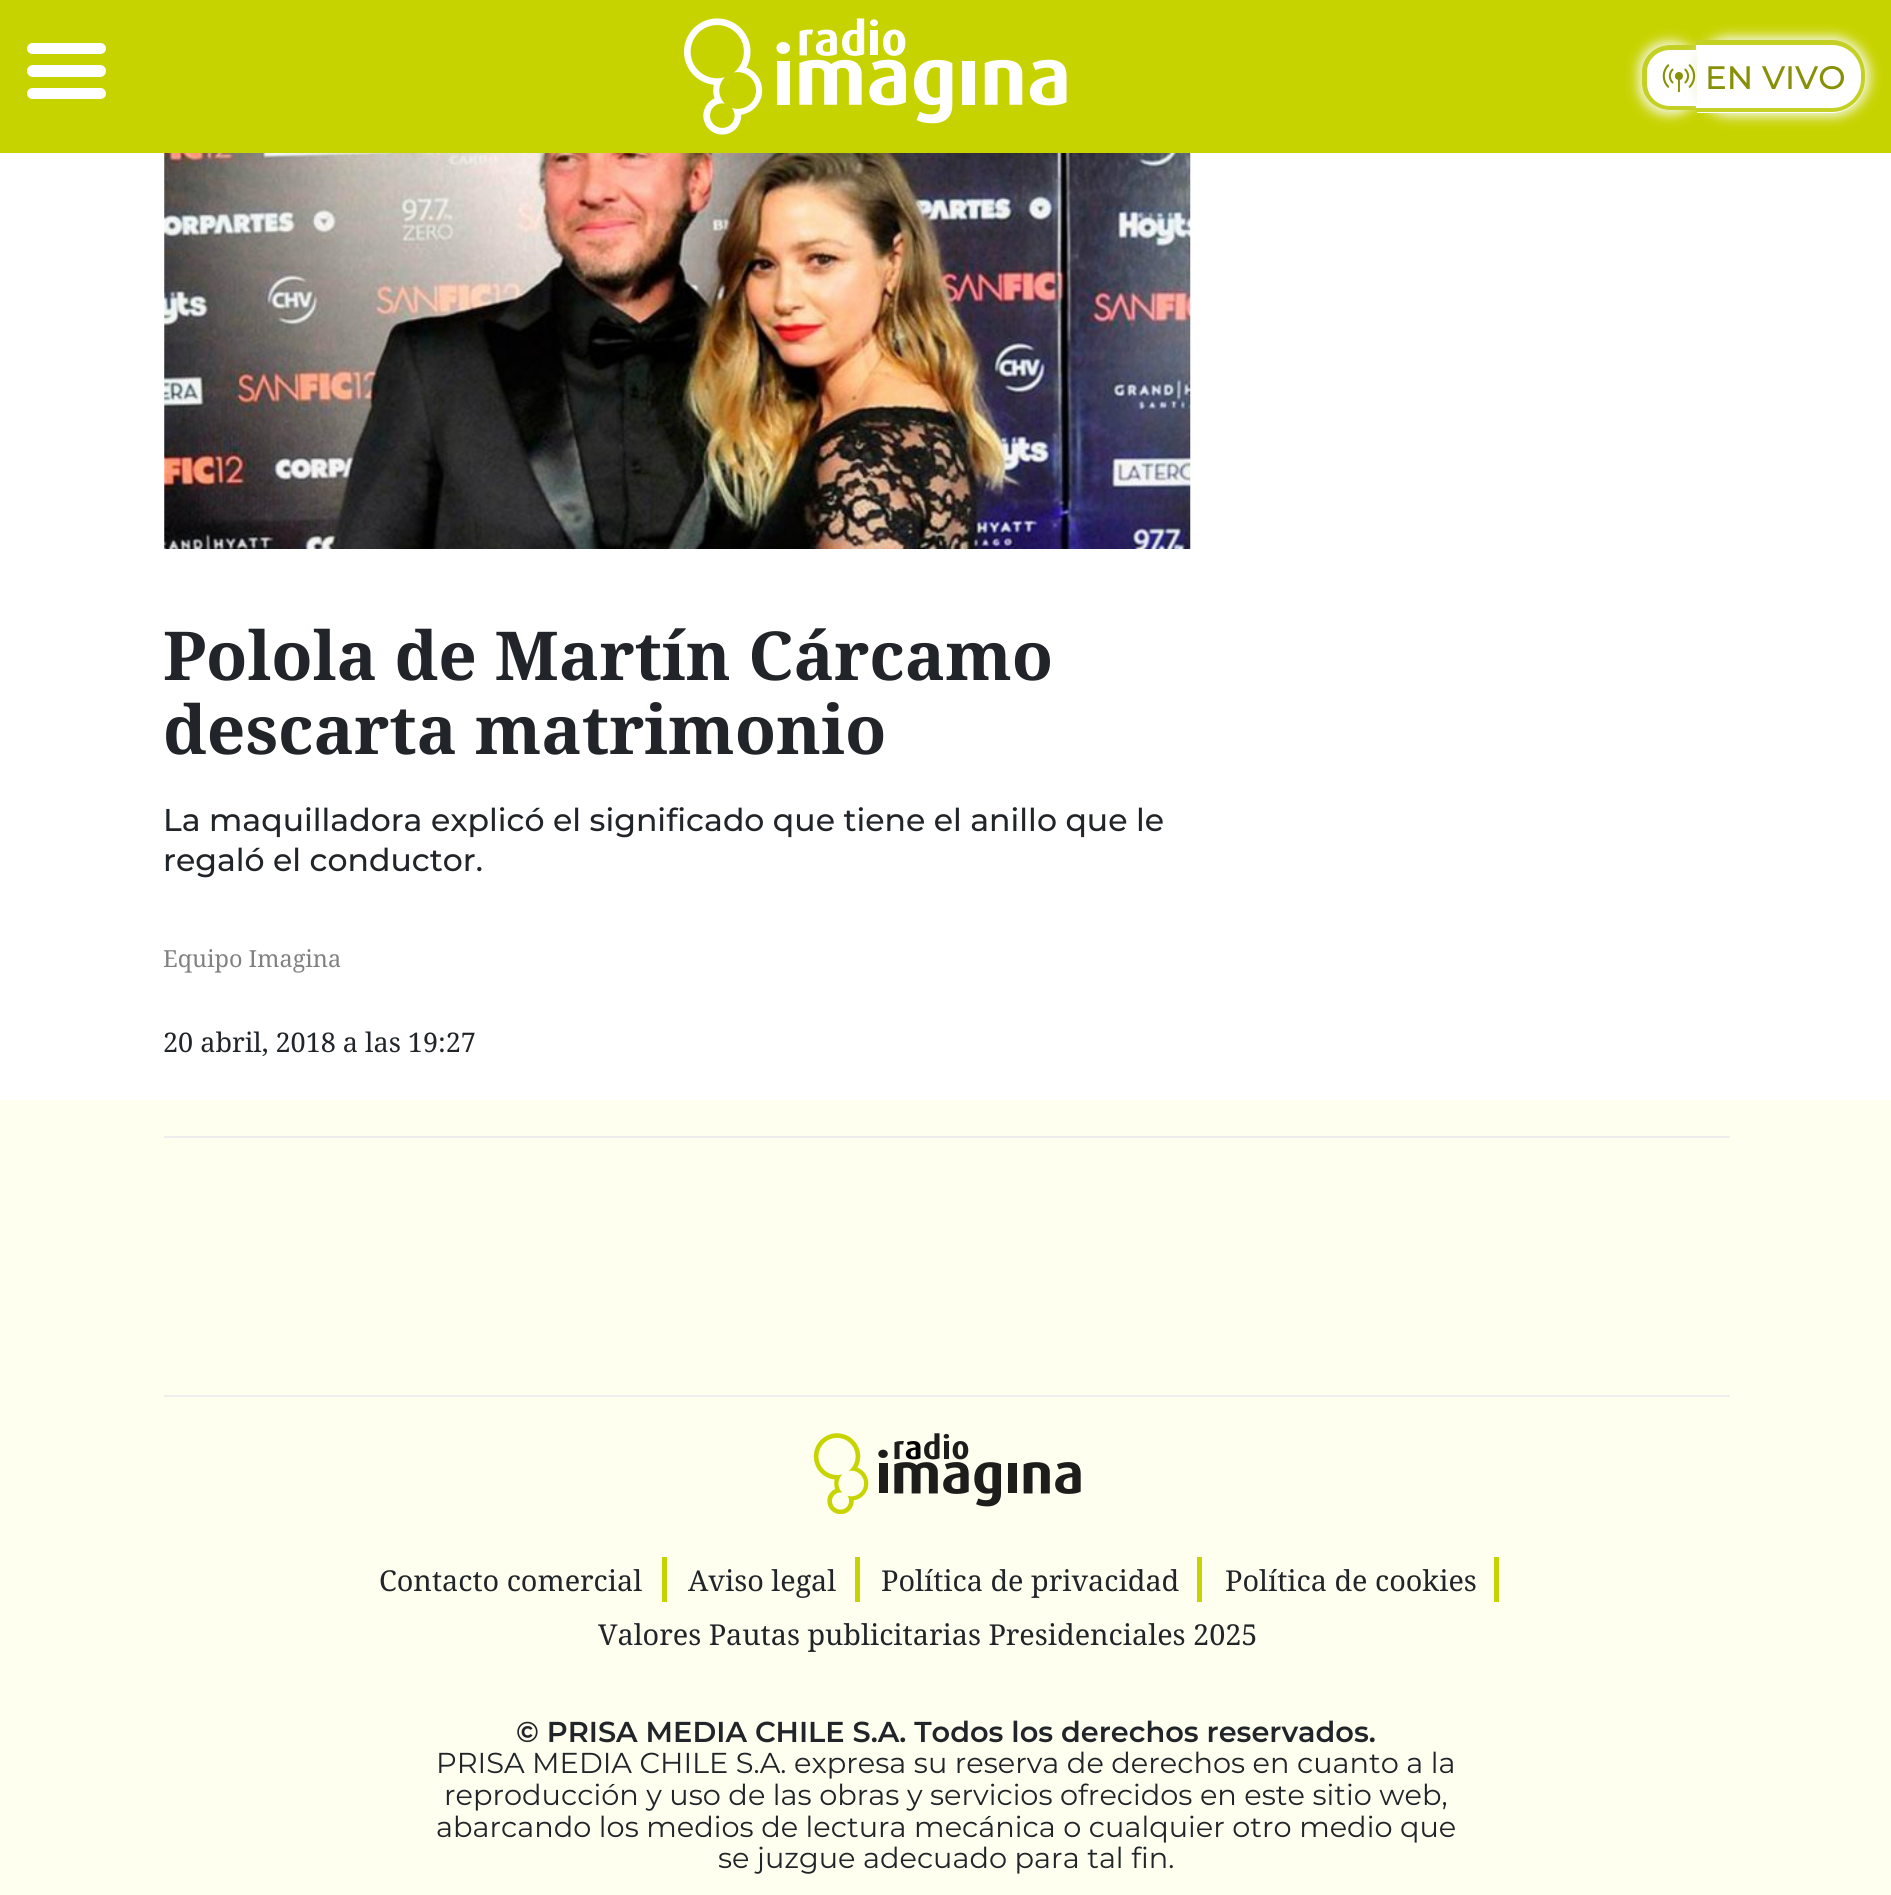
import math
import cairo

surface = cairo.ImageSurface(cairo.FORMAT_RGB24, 1891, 1895)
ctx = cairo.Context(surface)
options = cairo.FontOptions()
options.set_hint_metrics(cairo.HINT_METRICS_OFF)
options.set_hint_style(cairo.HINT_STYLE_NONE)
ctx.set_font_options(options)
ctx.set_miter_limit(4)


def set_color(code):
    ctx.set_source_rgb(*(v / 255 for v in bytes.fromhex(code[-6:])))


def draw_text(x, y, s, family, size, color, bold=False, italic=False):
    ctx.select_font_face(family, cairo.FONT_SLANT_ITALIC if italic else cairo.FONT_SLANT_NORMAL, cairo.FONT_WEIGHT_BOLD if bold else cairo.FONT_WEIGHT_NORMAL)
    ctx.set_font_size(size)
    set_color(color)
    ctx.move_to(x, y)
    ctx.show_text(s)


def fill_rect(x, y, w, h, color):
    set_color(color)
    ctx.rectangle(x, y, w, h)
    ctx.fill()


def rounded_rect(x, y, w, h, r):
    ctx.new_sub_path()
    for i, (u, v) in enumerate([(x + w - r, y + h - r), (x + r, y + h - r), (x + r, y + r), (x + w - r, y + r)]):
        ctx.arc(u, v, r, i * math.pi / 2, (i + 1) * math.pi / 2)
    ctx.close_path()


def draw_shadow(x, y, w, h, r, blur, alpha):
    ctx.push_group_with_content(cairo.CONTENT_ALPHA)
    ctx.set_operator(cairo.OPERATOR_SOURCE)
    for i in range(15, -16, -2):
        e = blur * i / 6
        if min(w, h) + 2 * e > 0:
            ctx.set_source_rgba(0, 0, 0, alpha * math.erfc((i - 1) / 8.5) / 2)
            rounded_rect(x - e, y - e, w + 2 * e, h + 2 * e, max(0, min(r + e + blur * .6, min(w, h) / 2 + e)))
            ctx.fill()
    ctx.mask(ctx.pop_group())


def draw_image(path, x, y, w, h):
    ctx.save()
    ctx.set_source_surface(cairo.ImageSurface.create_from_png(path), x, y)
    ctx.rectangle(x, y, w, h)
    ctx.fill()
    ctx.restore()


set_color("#ffffff")
ctx.paint()
fill_rect(0, 0, 1891, 153, "#c7d300")
set_color("#ffffff")
rounded_rect(27, 43, 79, 11, 5.5)
ctx.fill()
rounded_rect(27, 65, 79, 12, 6)
ctx.fill()
rounded_rect(27, 88, 79, 11, 5.5)
ctx.fill()
draw_image("assets/img1.png", 684, 18, 383, 117)
set_color("#f2f4db")
draw_shadow(1638, 41, 63, 74, 31.5, 5.5, 1)
set_color("#ffffff")
ctx.new_path()
ctx.move_to(1670, 45)
ctx.line_to(1697, 45)
ctx.line_to(1697, 110)
ctx.line_to(1670, 110)
ctx.curve_to(1655, 110, 1643, 98, 1643, 83)
ctx.line_to(1643, 72)
ctx.curve_to(1643, 57, 1655, 45, 1670, 45)
ctx.close_path()
ctx.fill()
set_color("#c5d024")
ctx.set_fill_rule(cairo.FILL_RULE_EVEN_ODD)
ctx.new_path()
ctx.move_to(1670, 45)
ctx.line_to(1696, 45)
ctx.line_to(1696, 110)
ctx.line_to(1670, 110)
ctx.curve_to(1655, 110, 1642, 98, 1642, 83)
ctx.line_to(1642, 72)
ctx.curve_to(1642, 57, 1655, 45, 1670, 45)
ctx.close_path()
ctx.move_to(1670, 50)
ctx.line_to(1696, 50)
ctx.line_to(1696, 106)
ctx.line_to(1670, 106)
ctx.curve_to(1657, 106, 1647, 96, 1647, 83)
ctx.line_to(1647, 72)
ctx.curve_to(1647, 60, 1657, 50, 1670, 50)
ctx.close_path()
ctx.fill()
set_color("#f2f4db")
draw_shadow(1692, 36, 178, 81, 38, 5.5, 1)
set_color("#ffffff")
ctx.new_path()
ctx.move_to(1697, 41)
ctx.line_to(1831, 41)
ctx.curve_to(1850, 41, 1865, 56, 1865, 75)
ctx.line_to(1865, 79)
ctx.curve_to(1865, 98, 1850, 113, 1831, 113)
ctx.line_to(1697, 113)
ctx.close_path()
ctx.fill()
set_color("#c5d024")
ctx.new_path()
ctx.move_to(1696, 40)
ctx.line_to(1832, 40)
ctx.curve_to(1850, 40, 1865, 56, 1865, 74)
ctx.line_to(1865, 79)
ctx.curve_to(1865, 97, 1850, 112, 1832, 112)
ctx.line_to(1696, 112)
ctx.close_path()
ctx.move_to(1696, 45)
ctx.line_to(1832, 45)
ctx.curve_to(1848, 45, 1861, 58, 1861, 74)
ctx.line_to(1861, 79)
ctx.curve_to(1861, 95, 1848, 108, 1832, 108)
ctx.line_to(1696, 108)
ctx.close_path()
ctx.fill()
draw_image("assets/img2.png", 1662, 64, 34, 29)
draw_text(1705, 89, "EN VIVO", "Montserrat Medium", 32.5, "#879007")
draw_image("assets/img3.png", 164, 153, 1027, 396)
draw_text(163, 680, "Polola de Martín Cárcamo", "Noto Serif", 67.5, "#212529", bold=True)
draw_text(163, 754, "descarta matrimonio", "Noto Serif", 67.5, "#212529", bold=True)
draw_text(163, 831, "La maquilladora explicó el significado que tiene el anillo que le", "Montserrat Medium", 31.5, "#212529")
draw_text(163, 871, "regaló el conductor.", "Montserrat Medium", 31.5, "#212529")
draw_text(163, 967, "Equipo Imagina", "Noto Serif", 23.5, "#818181")
draw_text(163, 1052, "20 abril, 2018 a las 19:27", "Noto Serif", 27, "#212529")
fill_rect(0, 1100, 1891, 795, "#feffef")
fill_rect(164, 1136, 1566, 2, "#eeeeee")
fill_rect(164, 1395, 1566, 2, "#eeeeee")
draw_image("assets/img4.png", 813, 1433, 268, 81)
draw_text(379, 1591, "Contacto comercial", "Noto Serif", 28.8, "#212529")
fill_rect(662, 1557, 5, 45, "#c7d300")
draw_text(688, 1591, "Aviso legal", "Noto Serif", 28.8, "#212529")
fill_rect(855, 1557, 5, 45, "#c7d300")
draw_text(881, 1591, "Política de privacidad", "Noto Serif", 28.8, "#212529")
fill_rect(1197, 1557, 5, 45, "#c7d300")
draw_text(1225, 1591, "Política de cookies", "Noto Serif", 28.8, "#212529")
fill_rect(1494, 1557, 5, 45, "#c7d300")
draw_text(598, 1645, "Valores Pautas publicitarias Presidenciales 2025", "Noto Serif", 28.8, "#212529")
draw_text(516, 1742, "© PRISA MEDIA CHILE S.A. Todos los derechos reservados.", "Montserrat SemiBold", 28.8, "#212529")
draw_text(436, 1773, "PRISA MEDIA CHILE S.A. expresa su reserva de derechos en cuanto a la", "Montserrat", 28.8, "#212529")
draw_text(444, 1805, "reproducción y uso de las obras y servicios ofrecidos en este sitio web,", "Montserrat", 28.8, "#212529")
draw_text(436, 1837, "abarcando los medios de lectura mecánica o cualquier otro medio que", "Montserrat", 28.8, "#212529")
draw_text(718, 1868, "se juzgue adecuado para tal fin.", "Montserrat", 28.8, "#212529")
surface.write_to_png("output.png")
